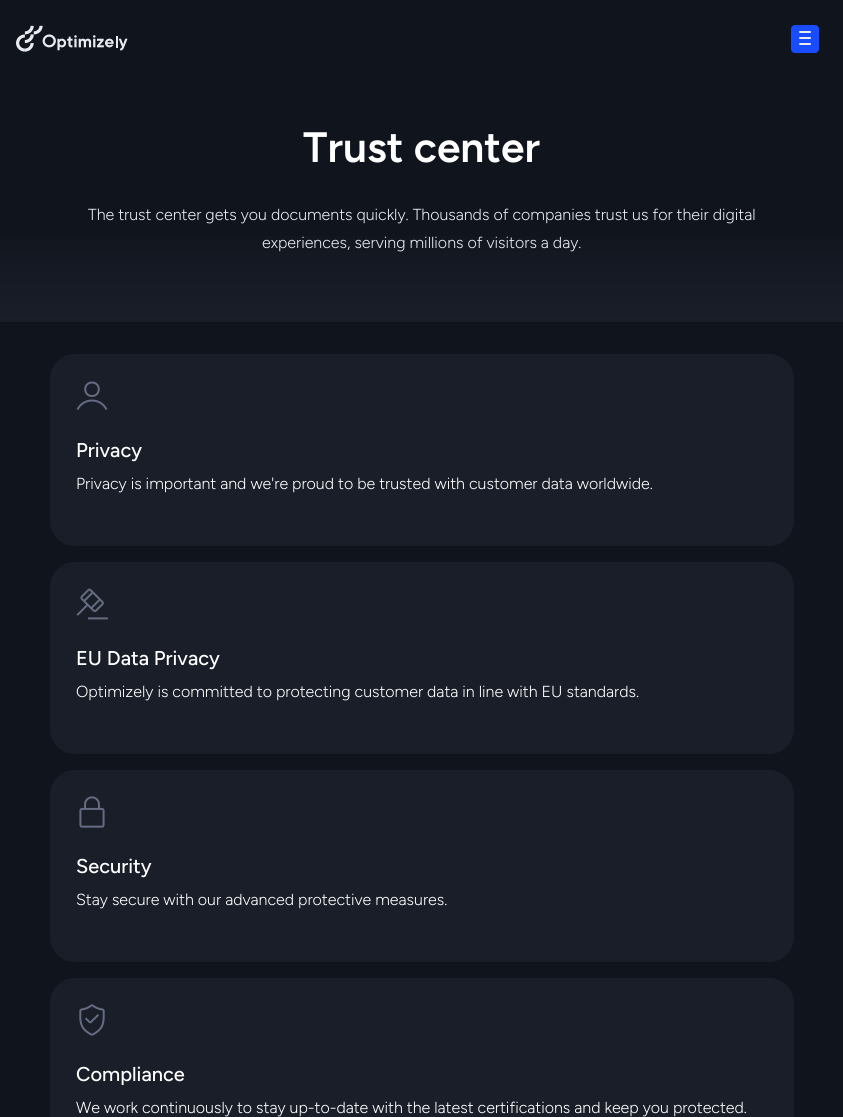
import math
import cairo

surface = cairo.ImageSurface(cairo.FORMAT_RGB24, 843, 1117)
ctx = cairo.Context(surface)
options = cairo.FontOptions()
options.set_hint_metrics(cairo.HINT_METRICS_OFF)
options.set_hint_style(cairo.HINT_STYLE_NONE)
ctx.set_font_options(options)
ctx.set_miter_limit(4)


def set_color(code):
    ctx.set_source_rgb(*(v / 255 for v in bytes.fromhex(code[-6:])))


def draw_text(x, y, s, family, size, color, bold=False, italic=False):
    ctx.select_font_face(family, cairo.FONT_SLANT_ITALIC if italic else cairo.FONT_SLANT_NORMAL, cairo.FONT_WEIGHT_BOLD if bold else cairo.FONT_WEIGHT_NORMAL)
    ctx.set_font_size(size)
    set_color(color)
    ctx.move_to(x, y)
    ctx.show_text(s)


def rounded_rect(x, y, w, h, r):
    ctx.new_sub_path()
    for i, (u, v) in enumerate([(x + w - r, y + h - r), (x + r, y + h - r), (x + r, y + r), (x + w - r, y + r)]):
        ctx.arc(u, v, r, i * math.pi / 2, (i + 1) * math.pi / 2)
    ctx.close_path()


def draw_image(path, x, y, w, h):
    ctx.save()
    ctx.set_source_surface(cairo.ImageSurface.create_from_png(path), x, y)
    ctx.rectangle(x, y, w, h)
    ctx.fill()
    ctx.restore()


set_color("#10141d")
ctx.paint()
draw_image("assets/img1.png", 16, 25, 112, 27)
set_color("#194bff")
rounded_rect(791, 25, 28, 28, 4)
ctx.fill()
set_color("#e9ebf1")
rounded_rect(799, 31, 12, 2, 1)
ctx.fill()
rounded_rect(799, 37, 12, 2, 1)
ctx.fill()
rounded_rect(799, 43, 12, 2, 1)
ctx.fill()
draw_text(303, 162, "Trust center", "Figtree SemiBold", 42.5, "#ffffff")
draw_text(88, 220, "The trust center gets you documents quickly. Thousands of companies trust us for their digital", "Figtree Light", 16, "#e9ebf1")
gradient = cairo.LinearGradient(422, 77, 422, 322)
gradient.add_color_stop_rgba(0.55, 0.063, 0.078, 0.114, 1)
gradient.add_color_stop_rgba(1, 0.098, 0.118, 0.157, 1)
ctx.set_source(gradient)
ctx.rectangle(0, 237, 843, 85)
ctx.fill()
draw_text(262, 248, "experiences, serving millions of visitors a day.", "Figtree Light", 16, "#e9ebf1")
set_color("#191e28")
rounded_rect(50, 354, 744, 192, 25)
ctx.fill()
ctx.new_path()
ctx.move_to(77.5, 409.5)
ctx.curve_to(83.5, 397.5, 100.5, 397.5, 106.5, 409.5)
ctx.move_to(92, 382.5)
ctx.curve_to(83, 382.5, 83, 396, 92, 396)
ctx.curve_to(101, 396, 101, 382.5, 92, 382.5)
ctx.close_path()
set_color("#656c81")
ctx.stroke()
draw_text(76, 457, "Privacy", "Figtree Medium", 20, "#ffffff")
draw_text(76, 489, "Privacy is important and we're proud to be trusted with customer data worldwide.", "Figtree Light", 16, "#ffffff")
set_color("#191e28")
rounded_rect(50, 562, 744, 192, 25)
ctx.fill()
draw_image("assets/img2.png", 76, 588, 32, 32)
draw_text(76, 665, "EU Data Privacy", "Figtree Medium", 20, "#ffffff")
draw_text(76, 697, "Optimizely is committed to protecting customer data in line with EU standards.", "Figtree Light", 16, "#ffffff")
set_color("#191e28")
rounded_rect(50, 770, 744, 192, 25)
ctx.fill()
draw_image("assets/img3.png", 79, 796, 26, 32)
draw_text(76, 873, "Security", "Figtree Medium", 20, "#ffffff")
draw_text(76, 905, "Stay secure with our advanced protective measures.", "Figtree Light", 16, "#ffffff")
set_color("#191e28")
rounded_rect(50, 978, 744, 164, 25)
ctx.fill()
draw_image("assets/img4.png", 79, 1004, 26, 32)
draw_text(76, 1081, "Compliance", "Figtree Medium", 20, "#ffffff")
draw_text(76, 1113, "We work continuously to stay up-to-date with the latest certifications and keep you protected.", "Figtree Light", 16, "#ffffff")
surface.write_to_png("output.png")
